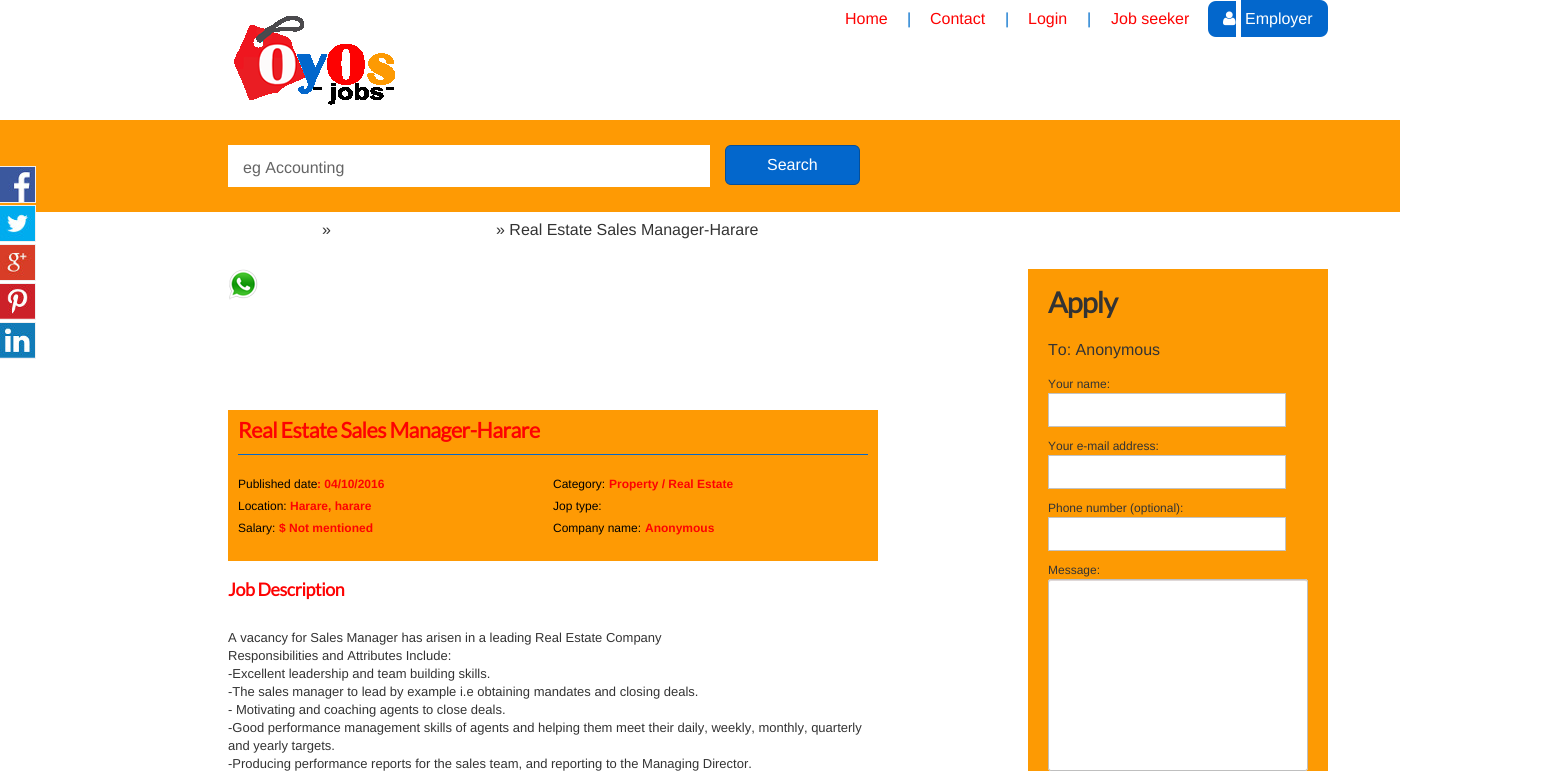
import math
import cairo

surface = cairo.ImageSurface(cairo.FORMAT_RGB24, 1556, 771)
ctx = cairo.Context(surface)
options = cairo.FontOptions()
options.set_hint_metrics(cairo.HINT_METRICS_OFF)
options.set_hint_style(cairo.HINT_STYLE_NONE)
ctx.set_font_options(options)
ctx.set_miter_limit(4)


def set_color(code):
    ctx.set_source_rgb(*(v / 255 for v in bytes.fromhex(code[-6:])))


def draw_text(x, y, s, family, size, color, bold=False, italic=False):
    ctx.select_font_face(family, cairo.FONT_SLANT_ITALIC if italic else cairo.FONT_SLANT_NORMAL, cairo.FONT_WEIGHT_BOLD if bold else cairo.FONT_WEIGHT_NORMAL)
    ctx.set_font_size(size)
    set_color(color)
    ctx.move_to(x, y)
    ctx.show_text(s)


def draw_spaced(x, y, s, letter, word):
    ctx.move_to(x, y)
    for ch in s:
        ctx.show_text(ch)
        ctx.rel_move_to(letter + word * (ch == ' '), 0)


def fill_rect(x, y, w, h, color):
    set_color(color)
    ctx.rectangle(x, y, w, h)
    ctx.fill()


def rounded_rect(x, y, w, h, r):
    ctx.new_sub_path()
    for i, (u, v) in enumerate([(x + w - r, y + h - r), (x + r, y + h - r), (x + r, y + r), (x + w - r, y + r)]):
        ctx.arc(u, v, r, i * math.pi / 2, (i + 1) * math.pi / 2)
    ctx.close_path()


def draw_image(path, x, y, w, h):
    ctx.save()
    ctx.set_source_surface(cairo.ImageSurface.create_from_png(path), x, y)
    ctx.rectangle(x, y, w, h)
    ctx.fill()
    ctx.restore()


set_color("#ffffff")
ctx.paint()
draw_image("assets/img1.png", 234, 16, 161, 89)
draw_text(845, 24, "Home", "Liberation Sans", 16, "#fd0202")
draw_text(907, 24, "|", "Liberation Sans", 16, "#036fcc")
draw_text(930, 24, "Contact", "Liberation Sans", 16, "#fd0202")
draw_text(1005, 24, "|", "Liberation Sans", 16, "#036fcc")
draw_text(1028, 24, "Login", "Liberation Sans", 16, "#fd0202")
draw_text(1087, 24, "|", "Liberation Sans", 16, "#036fcc")
draw_text(1111, 24, "Job seeker", "Liberation Sans", 16, "#fd0202")
set_color("#0367cc")
ctx.new_path()
ctx.move_to(1216, 1)
ctx.line_to(1236, 1)
ctx.line_to(1236, 37)
ctx.line_to(1216, 37)
ctx.curve_to(1211.5, 37, 1208, 33.5, 1208, 29)
ctx.line_to(1208, 9)
ctx.curve_to(1208, 4.5, 1211.5, 1, 1216, 1)
ctx.close_path()
ctx.fill()
ctx.new_path()
ctx.move_to(1241, 0)
ctx.line_to(1320, 0)
ctx.curve_to(1324.5, 0, 1328, 3.5, 1328, 8)
ctx.line_to(1328, 29)
ctx.curve_to(1328, 33.5, 1324.5, 37, 1320, 37)
ctx.line_to(1241, 37)
ctx.close_path()
ctx.fill()
draw_image("assets/img2.png", 1223, 11, 13, 15)
draw_text(1245, 24, "Employer", "Liberation Sans", 16, "#ffffff")
fill_rect(0, 120, 1400, 92, "#fe9a04")
fill_rect(228, 145, 482, 42, "#ffffff")
draw_text(243, 173, "eg Accounting", "Liberation Sans", 16, "#646464")
set_color("#0367cc")
rounded_rect(725.5, 145.5, 134, 39, 5.5)
ctx.fill_preserve()
set_color("#054f9a")
ctx.set_line_width(1)
ctx.stroke()
draw_text(767, 170, "Search", "Liberation Sans", 16, "#ffffff")
fill_rect(0, 166, 36, 1, "#f0f0f0")
fill_rect(35, 166, 1, 37, "#f0f0f0")
fill_rect(0, 202, 36, 1, "#f0f0f0")
draw_image("assets/img3.png", 0, 167, 35, 35)
fill_rect(0, 205, 36, 1, "#f0f0f0")
fill_rect(35, 205, 1, 37, "#f0f0f0")
fill_rect(0, 241, 36, 1, "#f0f0f0")
draw_image("assets/img4.png", 0, 206, 35, 35)
fill_rect(0, 244, 36, 1, "#f0f0f0")
fill_rect(35, 244, 1, 37, "#f0f0f0")
fill_rect(0, 280, 36, 1, "#f0f0f0")
draw_image("assets/img5.png", 0, 245, 35, 35)
fill_rect(0, 283, 36, 1, "#f0f0f0")
fill_rect(35, 283, 1, 37, "#f0f0f0")
fill_rect(0, 319, 36, 1, "#f0f0f0")
draw_image("assets/img6.png", 0, 284, 35, 35)
fill_rect(0, 322, 36, 1, "#f0f0f0")
fill_rect(35, 322, 1, 37, "#f0f0f0")
fill_rect(0, 358, 36, 1, "#f0f0f0")
draw_image("assets/img7.png", 0, 323, 35, 35)
draw_text(322, 235, "»", "Liberation Sans", 16, "#333333")
draw_text(496, 235, "» Real Estate Sales Manager-Harare", "Liberation Sans", 16, "#333333")
draw_image("assets/img8.png", 229, 269, 29, 31)
fill_rect(228, 410, 650, 151, "#fe9a04")
fill_rect(238, 454, 630, 1, "#0367cc")
ctx.select_font_face("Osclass", cairo.FONT_SLANT_NORMAL, cairo.FONT_WEIGHT_BOLD)
ctx.set_font_size(21.6)
set_color("#fd0202")
draw_spaced(238, 438, "Real Estate Sales Manager-Harare", -0.65, 0)
draw_text(238, 488, "Published date", "Liberation Sans", 12, "#000000")
draw_text(317, 488, ": 04/10/2016", "Liberation Sans", 12, "#fd0202", bold=True)
draw_text(553, 488, "Category:", "Liberation Sans", 12, "#000000")
draw_text(609, 488, "Property / Real Estate", "Liberation Sans", 12, "#fd0202", bold=True)
draw_text(238, 510, "Location:", "Liberation Sans", 12, "#000000")
draw_text(290, 510, "Harare, harare", "Liberation Sans", 12, "#fd0202", bold=True)
draw_text(553, 510, "Jop type:", "Liberation Sans", 12, "#000000")
draw_text(238, 532, "Salary:", "Liberation Sans", 12, "#000000")
draw_text(279, 532, "$ Not mentioned", "Liberation Sans", 12, "#fd0202", bold=True)
draw_text(553, 532, "Company name:", "Liberation Sans", 12, "#000000")
draw_text(645, 532, "Anonymous", "Liberation Sans", 12, "#fd0202", bold=True)
ctx.select_font_face("Osclass", cairo.FONT_SLANT_NORMAL, cairo.FONT_WEIGHT_BOLD)
ctx.set_font_size(18)
draw_spaced(228, 596, "Job Description", -0.5, 0)
draw_text(228, 642, "A vacancy for Sales Manager has arisen in a leading Real Estate Company", "Liberation Sans", 13, "#333333")
draw_text(228, 660, "Responsibilities and Attributes Include:", "Liberation Sans", 13, "#333333")
draw_text(228, 678, "-Excellent leadership and team building skills.", "Liberation Sans", 13, "#333333")
draw_text(228, 696, "-The sales manager to lead by example i.e obtaining mandates and closing deals.", "Liberation Sans", 13, "#333333")
draw_text(228, 714, "- Motivating and coaching agents to close deals.", "Liberation Sans", 13, "#333333")
draw_text(228, 732, "-Good performance management skills of agents and helping them meet their daily, weekly, monthly, quarterly", "Liberation Sans", 13, "#333333")
draw_text(228, 750, "and yearly targets.", "Liberation Sans", 13, "#333333")
draw_text(228, 768, "-Producing performance reports for the sales team, and reporting to the Managing Director.", "Liberation Sans", 13, "#333333")
fill_rect(1028, 269, 300, 502, "#fd9a03")
ctx.select_font_face("Osclass", cairo.FONT_SLANT_NORMAL, cairo.FONT_WEIGHT_BOLD)
ctx.set_font_size(29)
set_color("#333333")
draw_spaced(1048, 313, "Apply", -1, 0)
draw_text(1048, 355, "To: Anonymous", "Liberation Sans", 16, "#333333")
draw_text(1048, 388, "Your name:", "Liberation Sans", 12, "#333333")
set_color("#ffffff")
ctx.rectangle(1048.5, 393.5, 237, 33)
ctx.fill_preserve()
set_color("#c3c3c3")
ctx.stroke()
draw_text(1048, 450, "Your e-mail address:", "Liberation Sans", 12, "#333333")
set_color("#ffffff")
ctx.rectangle(1048.5, 455.5, 237, 33)
ctx.fill_preserve()
set_color("#c3c3c3")
ctx.stroke()
draw_text(1048, 512, "Phone number (optional):", "Liberation Sans", 12, "#333333")
set_color("#ffffff")
ctx.rectangle(1048.5, 517.5, 237, 33)
ctx.fill_preserve()
set_color("#c3c3c3")
ctx.stroke()
draw_text(1048, 574, "Message:", "Liberation Sans", 12, "#333333")
set_color("#ffffff")
rounded_rect(1048, 579, 260, 192, 3)
ctx.fill()
set_color("#dfd8d8")
ctx.new_path()
ctx.move_to(1051, 581)
ctx.line_to(1305, 581)
ctx.curve_to(1306, 581, 1307, 582, 1307, 583)
ctx.line_to(1306, 580)
ctx.line_to(1051, 580)
ctx.curve_to(1049, 580, 1049, 582, 1049, 583)
ctx.curve_to(1049, 582, 1050, 581, 1051, 581)
ctx.close_path()
ctx.fill()
rounded_rect(1048.5, 579.5, 259, 191, 2.5)
set_color("#bfbfbf")
ctx.stroke()
surface.write_to_png("output.png")
